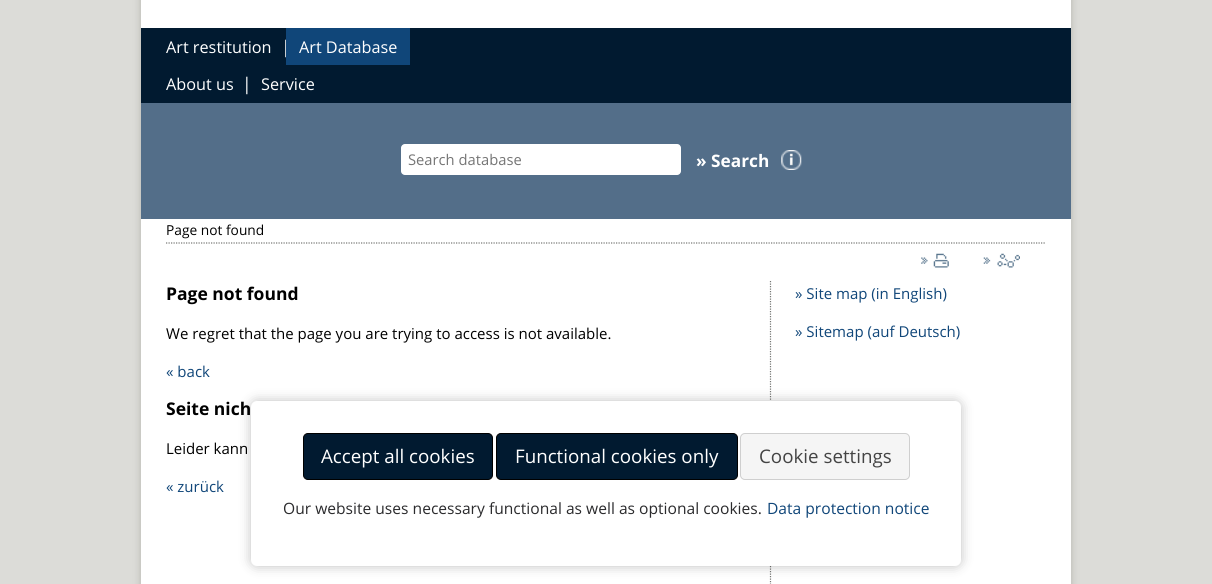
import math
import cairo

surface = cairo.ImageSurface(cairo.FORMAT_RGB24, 1212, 584)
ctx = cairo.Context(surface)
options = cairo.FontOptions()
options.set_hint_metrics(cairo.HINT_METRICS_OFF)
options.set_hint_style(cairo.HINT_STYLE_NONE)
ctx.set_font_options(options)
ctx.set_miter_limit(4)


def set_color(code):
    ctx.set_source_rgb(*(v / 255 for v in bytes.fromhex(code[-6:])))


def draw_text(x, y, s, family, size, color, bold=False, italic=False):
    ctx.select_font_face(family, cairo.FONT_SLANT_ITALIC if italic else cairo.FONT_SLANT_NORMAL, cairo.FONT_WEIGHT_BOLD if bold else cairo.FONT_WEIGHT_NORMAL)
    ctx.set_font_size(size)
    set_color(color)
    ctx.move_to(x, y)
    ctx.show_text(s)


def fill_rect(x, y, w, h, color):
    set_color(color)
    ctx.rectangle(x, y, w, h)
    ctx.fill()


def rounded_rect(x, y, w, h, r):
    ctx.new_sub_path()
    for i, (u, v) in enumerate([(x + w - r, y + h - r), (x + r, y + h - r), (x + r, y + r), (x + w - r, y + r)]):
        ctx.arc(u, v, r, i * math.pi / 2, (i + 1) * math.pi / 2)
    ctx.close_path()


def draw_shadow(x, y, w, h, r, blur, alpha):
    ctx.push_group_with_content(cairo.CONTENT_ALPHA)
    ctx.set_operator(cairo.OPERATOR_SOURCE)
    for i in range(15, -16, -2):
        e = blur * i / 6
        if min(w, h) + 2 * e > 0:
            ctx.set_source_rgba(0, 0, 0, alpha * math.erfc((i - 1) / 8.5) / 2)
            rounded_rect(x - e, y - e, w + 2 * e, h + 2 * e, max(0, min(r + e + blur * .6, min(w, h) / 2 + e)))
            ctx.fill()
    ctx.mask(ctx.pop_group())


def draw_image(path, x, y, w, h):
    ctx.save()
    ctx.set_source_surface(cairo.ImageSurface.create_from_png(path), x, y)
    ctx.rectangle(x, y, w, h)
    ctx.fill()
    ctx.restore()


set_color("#dcdcd8")
ctx.paint()
set_color("#545448")
draw_shadow(141, -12, 930, 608, 0, 4, 0.3)
fill_rect(141, 0, 930, 584, "#ffffff")
fill_rect(141, 28, 930, 75, "#011a30")
draw_text(166, 53, "Art restitution", "Open Sans", 16.25, "#ffffff")
draw_text(281, 53, "|", "Open Sans", 17.5, "#ffffff")
fill_rect(286, 28, 124, 37, "#104679")
draw_text(299, 53, "Art Database", "Open Sans", 16.25, "#ffffff")
draw_text(166, 90, "About us", "Open Sans", 16.25, "#ffffff")
draw_text(242, 90, "|", "Open Sans", 17.5, "#ffffff")
draw_text(261, 90, "Service", "Open Sans", 16.25, "#ffffff")
fill_rect(141, 103, 930, 116, "#536e89")
set_color("#ffffff")
rounded_rect(401, 144, 280, 31, 4)
ctx.fill()
draw_text(408, 165, "Search database", "Open Sans", 14.75, "#757575")
draw_text(696, 167, "» Search", "Open Sans", 17.25, "#ffffff", bold=True)
draw_image("assets/img1.png", 781, 150, 21, 20)
ctx.new_path()
ctx.move_to(166, 243)
ctx.line_to(1045, 243)
set_color("#757674")
ctx.set_line_width(1.2)
ctx.set_dash([1.25, 1.25])
ctx.stroke()
draw_text(166, 235, "Page not found", "Open Sans", 13.75, "#000000")
ctx.new_path()
ctx.move_to(770.5, 281)
ctx.line_to(770.5, 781)
set_color("#757674")
ctx.stroke()
draw_image("assets/img2.png", 921, 253, 28, 15)
draw_image("assets/img3.png", 983, 253, 37, 15)
draw_text(166, 300, "Page not found", "Open Sans", 17.5, "#000000", bold=True)
draw_text(166, 339, "We regret that the page you are trying to access is not available.", "Open Sans", 15, "#000000")
draw_text(166, 377, "« back", "Open Sans", 15, "#104679")
draw_text(166, 415, "Seite nich", "Open Sans", 17.5, "#000000", bold=True)
draw_text(166, 454, "Leider kann", "Open Sans", 15, "#000000")
draw_text(166, 492, "« zurück", "Open Sans", 15, "#104679")
draw_text(795, 299, "» Site map (in English)", "Open Sans", 15, "#104679")
draw_text(795, 337, "» Sitemap (auf Deutsch)", "Open Sans", 15, "#104679")
set_color("#000000")
draw_shadow(251, 401, 710, 165, 6, 6, 0.25)
set_color("#ffffff")
rounded_rect(251, 401, 710, 165, 6)
ctx.fill()
set_color("#011a30")
rounded_rect(303.5, 433.5, 189, 46, 4.5)
ctx.fill_preserve()
set_color("#000000")
ctx.set_line_width(1)
ctx.set_dash([])
ctx.stroke()
draw_text(321, 463, "Accept all cookies", "Open Sans", 18.75, "#ffffff")
set_color("#011a30")
rounded_rect(496.5, 433.5, 241, 46, 4.5)
ctx.fill_preserve()
set_color("#000000")
ctx.stroke()
draw_text(515, 463, "Functional cookies only", "Open Sans", 18.75, "#ffffff")
set_color("#f5f5f5")
rounded_rect(740.5, 433.5, 169, 46, 4.5)
ctx.fill_preserve()
set_color("#cfcfcf")
ctx.stroke()
draw_text(759, 463, "Cookie settings", "Open Sans", 18.75, "#444444")
draw_text(283, 514, "Our website uses necessary functional as well as optional cookies.", "Open Sans", 15.6, "#2b2b2d")
draw_text(767, 514, "Data protection notice", "Open Sans", 15.6, "#104679")
surface.write_to_png("output.png")
